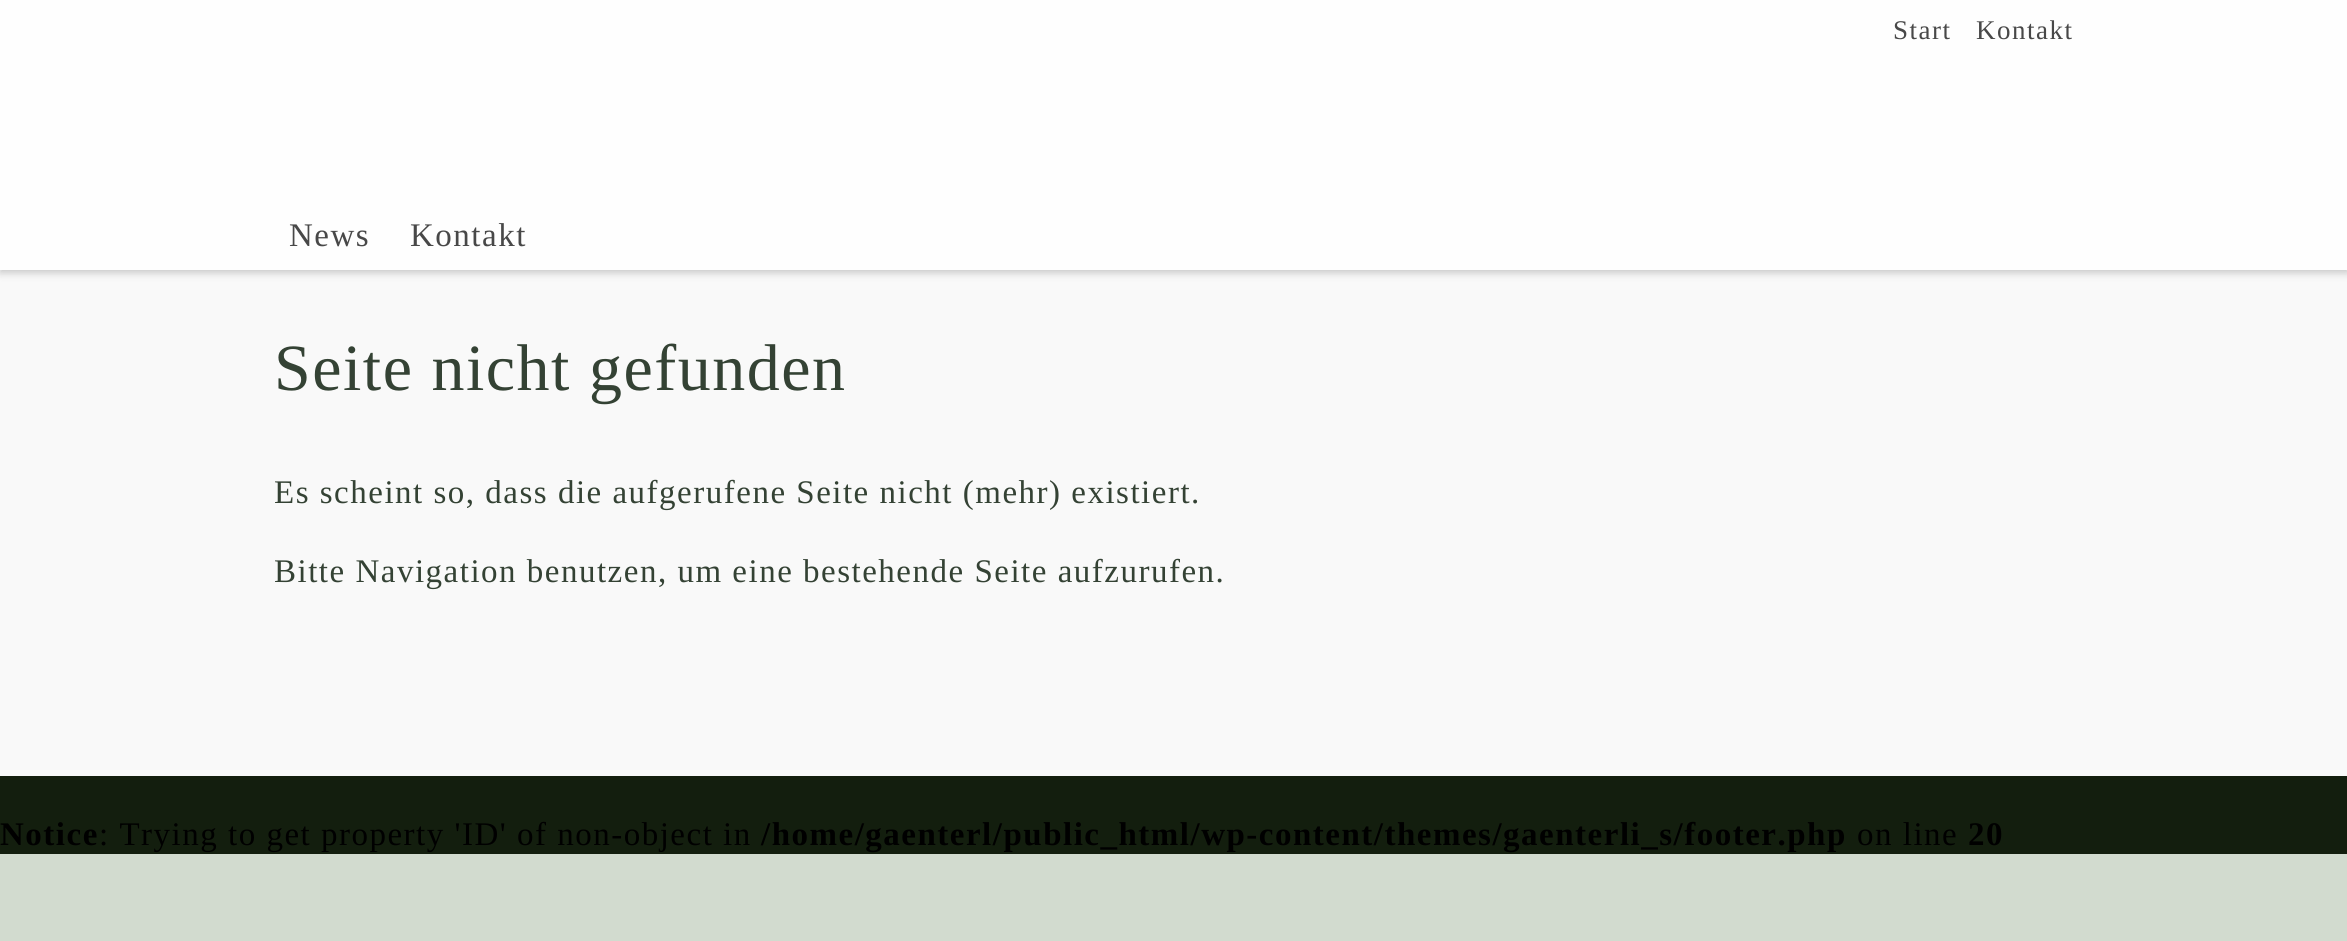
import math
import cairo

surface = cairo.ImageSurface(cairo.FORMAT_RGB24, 2347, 941)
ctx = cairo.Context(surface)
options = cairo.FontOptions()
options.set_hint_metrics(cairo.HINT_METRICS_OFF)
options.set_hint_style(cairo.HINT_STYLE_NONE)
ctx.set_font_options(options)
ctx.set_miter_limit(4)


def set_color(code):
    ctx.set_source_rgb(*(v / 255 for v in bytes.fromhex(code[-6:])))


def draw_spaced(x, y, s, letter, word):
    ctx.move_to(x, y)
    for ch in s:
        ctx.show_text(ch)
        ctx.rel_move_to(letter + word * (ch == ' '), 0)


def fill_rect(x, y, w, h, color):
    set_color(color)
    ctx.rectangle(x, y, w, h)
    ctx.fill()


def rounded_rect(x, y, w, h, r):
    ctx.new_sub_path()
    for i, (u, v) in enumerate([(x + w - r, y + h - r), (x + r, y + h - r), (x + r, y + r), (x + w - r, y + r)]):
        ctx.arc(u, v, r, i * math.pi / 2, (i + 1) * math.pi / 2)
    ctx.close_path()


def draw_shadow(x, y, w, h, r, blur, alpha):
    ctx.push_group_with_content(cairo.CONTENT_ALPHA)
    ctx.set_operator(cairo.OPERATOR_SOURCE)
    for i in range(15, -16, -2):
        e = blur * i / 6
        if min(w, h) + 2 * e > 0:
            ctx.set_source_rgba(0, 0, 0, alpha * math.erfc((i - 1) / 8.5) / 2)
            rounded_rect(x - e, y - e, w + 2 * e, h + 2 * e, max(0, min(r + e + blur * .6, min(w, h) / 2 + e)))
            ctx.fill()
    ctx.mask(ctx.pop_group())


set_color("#131e0e")
ctx.paint()
fill_rect(0, 270, 2347, 506, "#f9f9f9")
set_color("#000000")
draw_shadow(0, 3, 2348, 270, 0, 4, 0.2)
fill_rect(0, 0, 2347, 270, "#fefefe")
ctx.select_font_face("Liberation Serif")
ctx.set_font_size(27)
set_color("#484848")
draw_spaced(1893, 39, "Start", 1.5, 0)
draw_spaced(1976, 39, "Kontakt", 1.5, 0)
ctx.set_font_size(33)
draw_spaced(289, 246, "News", 1.5, 0)
draw_spaced(410, 246, "Kontakt", 1.5, 0)
ctx.set_font_size(66)
set_color("#344234")
draw_spaced(274, 390, "Seite nicht gefunden", 1.5, 0)
ctx.save()
ctx.rectangle(275, 270, 1800, 506)
ctx.clip()
ctx.set_font_size(33)
draw_spaced(274, 503, "Es scheint so, dass die aufgerufene Seite nicht (mehr) existiert.", 1.5, 0)
draw_spaced(274, 582, "Bitte Navigation benutzen, um eine bestehende Seite aufzurufen.", 1.5, 0)
ctx.restore()
ctx.select_font_face("Liberation Serif", cairo.FONT_SLANT_NORMAL, cairo.FONT_WEIGHT_BOLD)
ctx.set_font_size(33)
set_color("#000000")
draw_spaced(0, 845, "Notice", 1.5, 0)
ctx.select_font_face("Liberation Serif")
draw_spaced(99, 845, ": Trying to get property 'ID' of non-object in", 1.5, 0)
ctx.select_font_face("Liberation Serif", cairo.FONT_SLANT_NORMAL, cairo.FONT_WEIGHT_BOLD)
draw_spaced(761, 845, "/home/gaenterl/public_html/wp-content/themes/gaenterli_s/footer.php", 1.5, 0)
ctx.select_font_face("Liberation Serif")
draw_spaced(1857, 845, "on line", 1.5, 0)
ctx.select_font_face("Liberation Serif", cairo.FONT_SLANT_NORMAL, cairo.FONT_WEIGHT_BOLD)
draw_spaced(1968, 845, "20", 1.5, 0)
fill_rect(0, 854, 2347, 87, "#d2dbcf")
surface.write_to_png("output.png")
